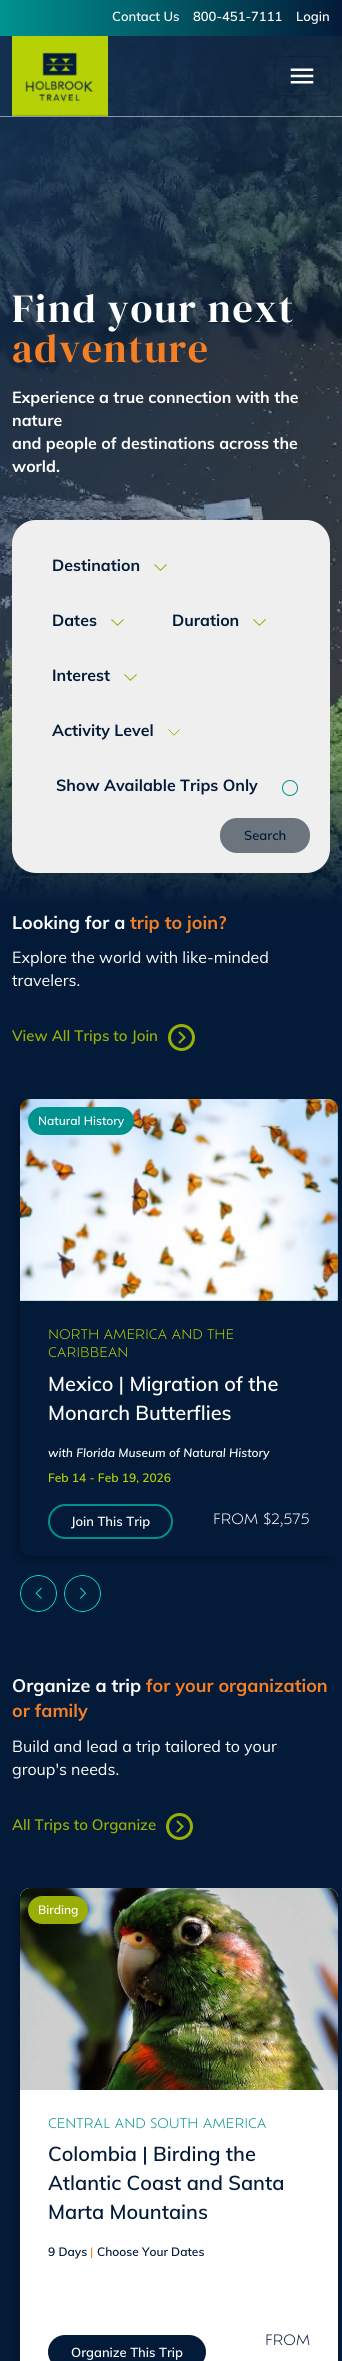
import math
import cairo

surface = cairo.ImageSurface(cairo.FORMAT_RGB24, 342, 2361)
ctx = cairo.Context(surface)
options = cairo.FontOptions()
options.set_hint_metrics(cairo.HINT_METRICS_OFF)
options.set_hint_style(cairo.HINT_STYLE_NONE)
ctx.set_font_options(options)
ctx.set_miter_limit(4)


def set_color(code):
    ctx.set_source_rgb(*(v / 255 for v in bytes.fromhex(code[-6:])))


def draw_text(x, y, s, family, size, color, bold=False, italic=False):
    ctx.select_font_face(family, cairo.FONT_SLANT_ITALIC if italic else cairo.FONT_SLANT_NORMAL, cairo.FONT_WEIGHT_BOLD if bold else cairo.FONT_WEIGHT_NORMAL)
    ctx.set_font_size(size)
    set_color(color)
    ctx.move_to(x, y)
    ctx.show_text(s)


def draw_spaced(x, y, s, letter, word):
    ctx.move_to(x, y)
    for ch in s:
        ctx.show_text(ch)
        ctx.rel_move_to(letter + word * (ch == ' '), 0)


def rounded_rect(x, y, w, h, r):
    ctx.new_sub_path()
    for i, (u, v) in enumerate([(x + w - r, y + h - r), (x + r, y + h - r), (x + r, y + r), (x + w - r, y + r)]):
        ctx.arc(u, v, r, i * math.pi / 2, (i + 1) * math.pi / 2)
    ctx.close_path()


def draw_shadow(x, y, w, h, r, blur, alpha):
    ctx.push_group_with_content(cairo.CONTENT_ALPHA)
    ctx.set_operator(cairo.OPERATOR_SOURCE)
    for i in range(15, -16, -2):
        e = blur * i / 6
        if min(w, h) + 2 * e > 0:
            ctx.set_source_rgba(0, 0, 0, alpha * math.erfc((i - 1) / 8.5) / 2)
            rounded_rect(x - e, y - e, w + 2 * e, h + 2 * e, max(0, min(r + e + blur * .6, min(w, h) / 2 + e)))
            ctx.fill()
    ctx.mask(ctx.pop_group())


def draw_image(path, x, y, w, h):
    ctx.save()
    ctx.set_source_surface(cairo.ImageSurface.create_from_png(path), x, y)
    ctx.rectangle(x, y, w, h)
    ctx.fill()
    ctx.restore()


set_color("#031b39")
ctx.paint()
gradient = cairo.LinearGradient(342, 18, 0, 18)
gradient.add_color_stop_rgba(0, 0.012, 0.106, 0.224, 1)
gradient.add_color_stop_rgba(1, 0, 0.573, 0.561, 1)
ctx.set_source(gradient)
ctx.rectangle(0, 0, 335, 36)
ctx.fill()
draw_text(112, 21, "Contact Us", "Muli SemiBold", 13, "#ffffff")
draw_text(193, 21, "800-451-7111", "Muli SemiBold", 13, "#ffffff")
draw_text(296, 21, "Login", "Muli SemiBold", 13, "#ffffff")
draw_image("assets/img3.png", 0, 36, 342, 877)
ctx.set_source_rgba(1, 1, 1, 0.5)
ctx.rectangle(0, 116, 342, 1)
ctx.fill()
draw_image("assets/img1.png", 12, 36, 96, 80)
rounded_rect(274.5, 56.5, 55, 39, 5.5)
ctx.set_source_rgba(0, 0, 0, 0.15)
ctx.set_line_width(1)
ctx.stroke()
draw_image("assets/img2.png", 290, 68, 24, 16)
ctx.select_font_face("DM Serif Display")
ctx.set_font_size(40)
set_color("#ffffff")
draw_spaced(12, 322, "Find your next", 1.6, 0)
set_color("#f57f25")
draw_spaced(12, 362, "adventure", 1.6, 0)
draw_text(12, 403, "Experience a true connection with the", "Muli", 16, "#ffffff", bold=True)
draw_text(12, 426, "nature", "Muli", 16, "#ffffff", bold=True)
draw_text(12, 449, "and people of destinations across the", "Muli", 16, "#ffffff", bold=True)
draw_text(12, 472, "world.", "Muli", 16, "#ffffff", bold=True)
set_color("#efefef")
rounded_rect(12, 520, 318, 353, 24)
ctx.fill()
draw_text(52, 571, "Destination", "Muli", 16, "#031b39", bold=True)
draw_image("assets/img4.png", 154, 564, 13, 7)
draw_text(52, 626, "Dates", "Muli", 16, "#031b39", bold=True)
draw_image("assets/img4.png", 111, 619, 13, 7)
draw_text(172, 626, "Duration", "Muli", 16, "#031b39", bold=True)
draw_image("assets/img5.png", 253, 619, 13, 7)
draw_text(52, 681, "Interest", "Muli", 16, "#031b39", bold=True)
draw_image("assets/img4.png", 124, 674, 13, 7)
draw_text(52, 736, "Activity Level", "Muli", 16, "#031b39", bold=True)
draw_image("assets/img6.png", 168, 729, 12, 7)
draw_text(56, 791, "Show Available Trips Only", "Muli", 16, "#031b39", bold=True)
ctx.new_path()
ctx.arc(290, 788, 7.5, 0, 2 * math.pi)
set_color("#00928f")
ctx.stroke()
set_color("#6c757d")
rounded_rect(220, 818, 90, 35, 17)
ctx.fill()
draw_text(244, 840, "Search", "Muli SemiBold", 13, "#031b39")
draw_text(12, 929, "Looking for a", "Muli", 18, "#ffffff", bold=True)
draw_text(130, 929, "trip to join?", "Muli", 18, "#f57f25", bold=True)
draw_text(12, 963, "Explore the world with like-minded", "Muli", 16, "#ffffff")
draw_text(12, 986, "travelers.", "Muli", 16, "#ffffff")
draw_text(12, 1041, "View All Trips to Join", "Muli SemiBold", 15, "#99ae06")
ctx.new_path()
ctx.arc(181.5, 1037.5, 12, 0, 2 * math.pi)
ctx.set_line_width(3)
ctx.stroke()
ctx.new_path()
ctx.move_to(179.5, 1032.5)
ctx.line_to(184.5, 1037.5)
ctx.line_to(179.5, 1042.5)
ctx.set_line_width(2)
ctx.set_line_cap(cairo.LINE_CAP_ROUND)
ctx.stroke()
set_color("#000000")
draw_shadow(15, 1104, 318, 457, 10, 5, 0.26)
set_color("#031b39")
rounded_rect(20, 1099, 318, 457, 10)
ctx.fill()
set_color("#00928f")
ctx.new_path()
ctx.move_to(30, 1099)
ctx.line_to(328, 1099)
ctx.curve_to(333.5, 1099, 338, 1103.5, 338, 1109)
ctx.line_to(338, 1301)
ctx.line_to(20, 1301)
ctx.line_to(20, 1109)
ctx.curve_to(20, 1103.5, 24.5, 1099, 30, 1099)
ctx.close_path()
ctx.fill()
draw_image("assets/img7.png", 20, 1099, 318, 202)
rounded_rect(28, 1107, 106, 28, 14)
ctx.fill()
draw_text(38, 1125, "Natural History", "Muli SemiBold", 12, "#ffffff")
draw_text(48, 1339, "NORTH AMERICA AND THE", "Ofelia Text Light", 13, "#b7d107")
draw_text(48, 1357, "CARIBBEAN", "Ofelia Text Light", 13, "#b7d107")
draw_text(48, 1391, "Mexico | Migration of the", "Muli SemiBold", 20, "#ffffff")
draw_text(48, 1420, "Monarch Butterflies", "Muli SemiBold", 20, "#ffffff")
draw_text(48, 1457, "with Florida Museum of Natural History", "Muli SemiBold", 12, "#ffffff", italic=True)
draw_text(48, 1482, "Feb 14 - Feb 19, 2026", "Muli SemiBold", 12, "#b7d107")
rounded_rect(49, 1505, 123, 33, 16.5)
set_color("#00928f")
ctx.set_line_cap(cairo.LINE_CAP_BUTT)
ctx.stroke()
draw_text(71, 1526, "Join This Trip", "Muli SemiBold", 13, "#ffffff")
draw_text(213, 1524, "FROM $2,575", "Ofelia Text Light", 14, "#ffffff")
draw_image("assets/img8.png", 20, 1575, 37, 37)
draw_image("assets/img9.png", 64, 1575, 37, 37)
draw_text(12, 1692, "Organize a trip", "Muli", 18, "#ffffff", bold=True)
draw_text(146, 1692, "for your organization", "Muli", 18, "#f57f25", bold=True)
draw_text(12, 1717, "or family", "Muli", 18, "#f57f25", bold=True)
draw_text(12, 1752, "Build and lead a trip tailored to your", "Muli", 16, "#ffffff")
draw_text(12, 1775, "group's needs.", "Muli", 16, "#ffffff")
draw_text(12, 1830, "All Trips to Organize", "Muli SemiBold", 15, "#99ae06")
ctx.new_path()
ctx.arc(179.5, 1826.5, 12, 0, 2 * math.pi)
ctx.set_line_width(3)
ctx.stroke()
ctx.new_path()
ctx.move_to(177.5, 1821.5)
ctx.line_to(182.5, 1826.5)
ctx.line_to(177.5, 1831.5)
ctx.set_line_width(2)
ctx.set_line_cap(cairo.LINE_CAP_ROUND)
ctx.stroke()
set_color("#000000")
draw_shadow(15, 1893, 318, 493, 10, 5, 0.26)
set_color("#ffffff")
rounded_rect(20, 1888, 318, 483, 10)
ctx.fill()
set_color("#00928f")
ctx.new_path()
ctx.move_to(30, 1888)
ctx.line_to(328, 1888)
ctx.curve_to(333.5, 1888, 338, 1892.5, 338, 1898)
ctx.line_to(338, 2090)
ctx.line_to(20, 2090)
ctx.line_to(20, 1898)
ctx.curve_to(20, 1892.5, 24.5, 1888, 30, 1888)
ctx.close_path()
ctx.fill()
draw_image("assets/img10.png", 20, 1888, 318, 202)
set_color("#99ae06")
rounded_rect(28, 1896, 60, 28, 14)
ctx.fill()
draw_text(38, 1914, "Birding", "Muli SemiBold", 12, "#ffffff")
draw_text(48, 2128, "CENTRAL AND SOUTH AMERICA", "Ofelia Text Light", 13, "#00928f")
draw_text(48, 2161, "Colombia | Birding the", "Muli SemiBold", 20, "#031b39")
draw_text(48, 2190, "Atlantic Coast and Santa", "Muli SemiBold", 20, "#031b39")
draw_text(48, 2219, "Marta Mountains", "Muli SemiBold", 20, "#031b39")
draw_text(48, 2256, "9 Days", "Muli SemiBold", 12, "#031b39")
draw_text(90, 2256, "|", "Muli SemiBold", 12, "#f57f25")
draw_text(97, 2256, "Choose Your Dates", "Muli SemiBold", 12, "#031b39")
draw_text(265, 2345, "FROM", "Ofelia Text Light", 14, "#031b39")
rounded_rect(49, 2336, 156, 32, 16)
ctx.fill_preserve()
ctx.set_line_cap(cairo.LINE_CAP_BUTT)
ctx.stroke()
draw_text(71, 2357, "Organize This Trip", "Muli SemiBold", 13, "#ffffff")
surface.write_to_png("output.png")
